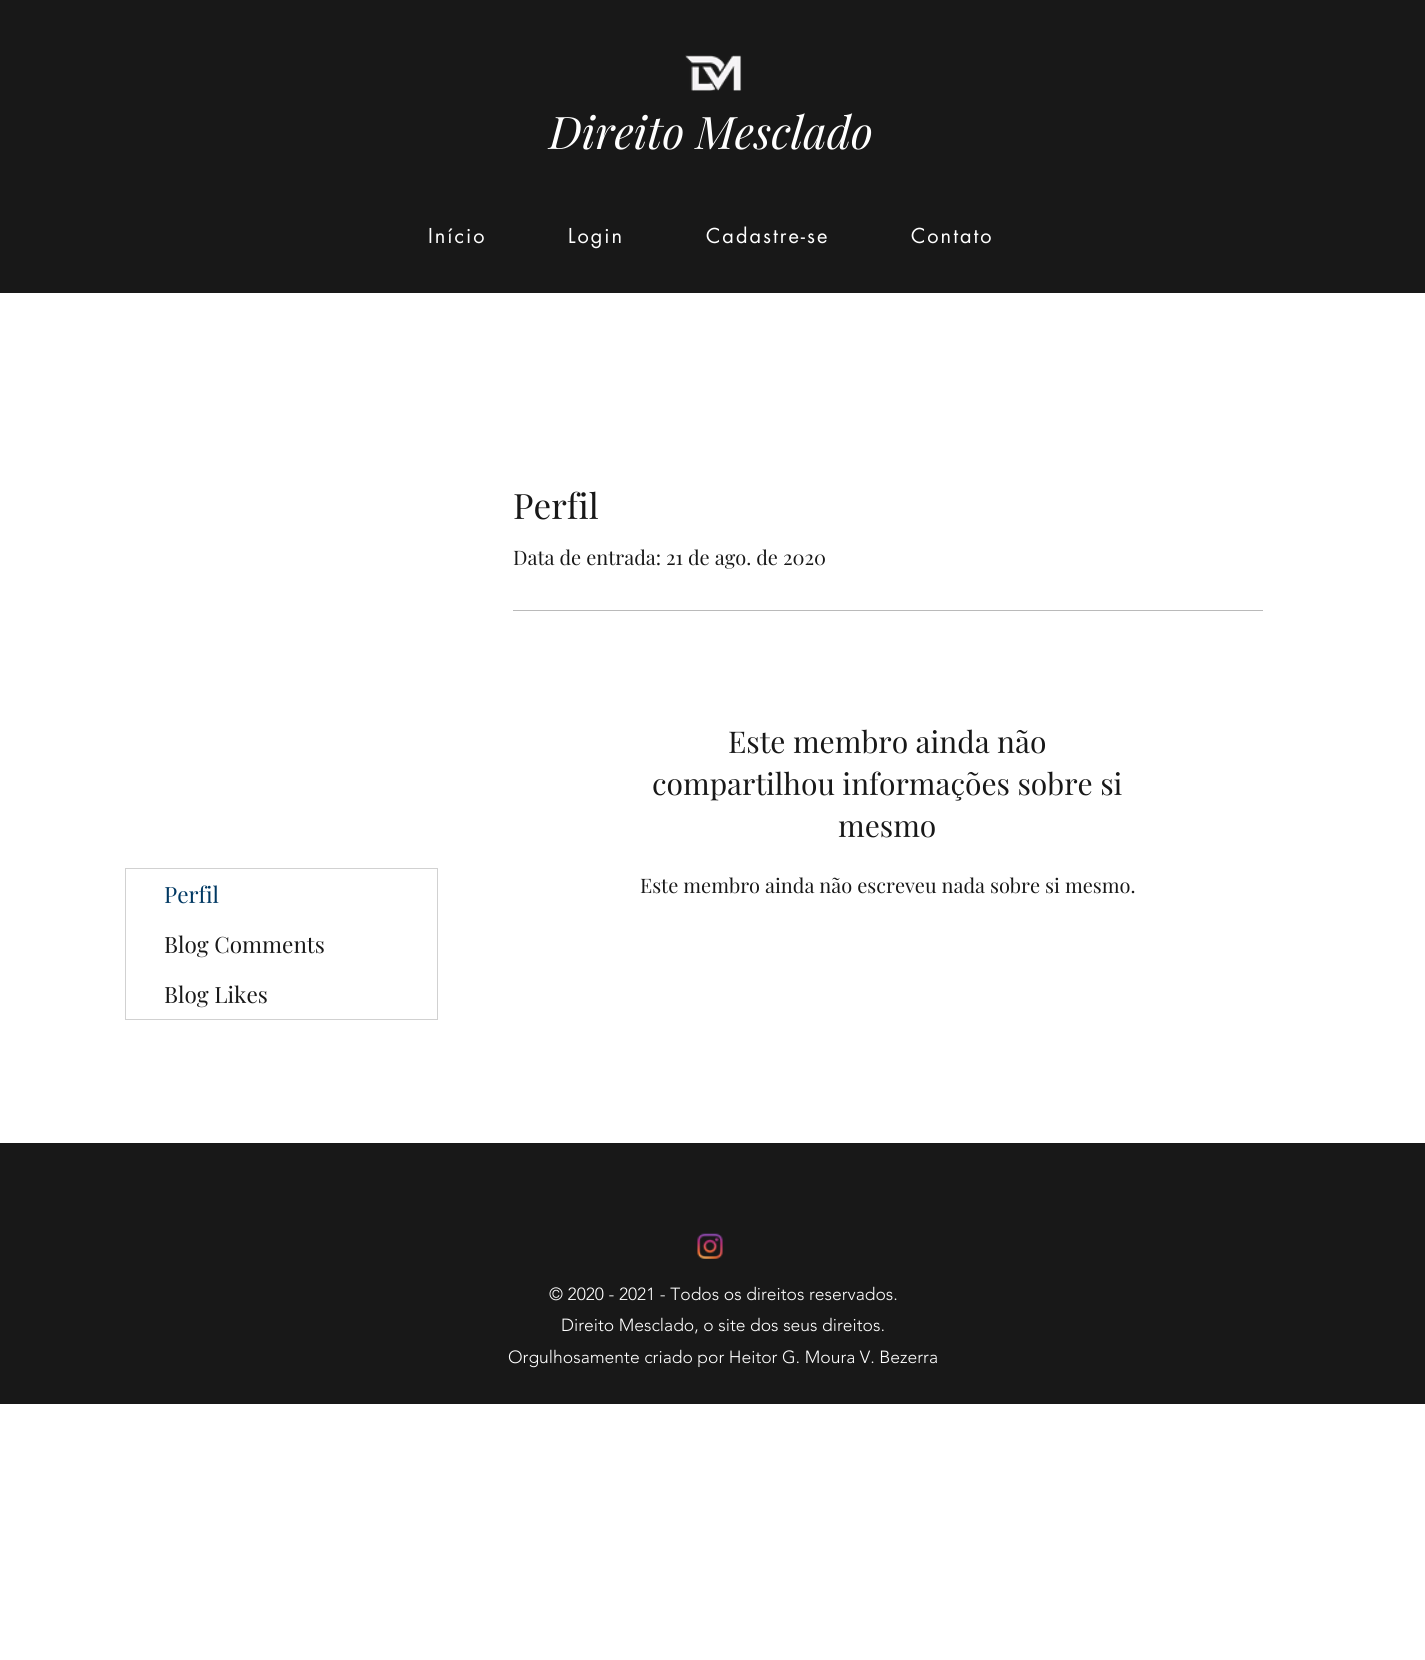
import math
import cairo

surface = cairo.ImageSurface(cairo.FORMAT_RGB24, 1425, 1660)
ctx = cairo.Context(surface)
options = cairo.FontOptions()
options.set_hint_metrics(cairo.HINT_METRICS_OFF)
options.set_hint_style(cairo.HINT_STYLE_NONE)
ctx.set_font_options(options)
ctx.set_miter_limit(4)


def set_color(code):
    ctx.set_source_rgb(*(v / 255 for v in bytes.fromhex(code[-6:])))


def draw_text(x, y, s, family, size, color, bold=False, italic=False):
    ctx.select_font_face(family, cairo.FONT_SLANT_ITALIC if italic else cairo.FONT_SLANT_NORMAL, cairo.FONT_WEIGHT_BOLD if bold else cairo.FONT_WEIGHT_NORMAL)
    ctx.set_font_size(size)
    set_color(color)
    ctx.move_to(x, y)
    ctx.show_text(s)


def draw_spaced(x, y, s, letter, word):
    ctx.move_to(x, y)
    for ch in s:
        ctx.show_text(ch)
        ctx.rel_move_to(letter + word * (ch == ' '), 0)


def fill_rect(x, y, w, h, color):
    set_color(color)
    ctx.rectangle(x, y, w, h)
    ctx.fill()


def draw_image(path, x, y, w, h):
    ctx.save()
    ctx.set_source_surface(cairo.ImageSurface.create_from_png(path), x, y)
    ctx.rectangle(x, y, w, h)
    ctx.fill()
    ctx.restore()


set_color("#ffffff")
ctx.paint()
fill_rect(0, 0, 1425, 293, "#181818")
draw_image("assets/img1.png", 685, 55, 57, 36)
draw_text(549, 149, "Direito Mesclado", "Playfair Display", 45, "#ffffff", italic=True)
ctx.select_font_face("futura")
ctx.set_font_size(20)
draw_spaced(428, 243, "Início", 2, 0)
draw_spaced(568, 243, "Login", 2, 0)
draw_spaced(706, 243, "Cadastre-se", 2, 0)
draw_spaced(911, 243, "Contato", 2, 0)
draw_text(513, 519, "Perfil", "Playfair Display", 35, "#181818")
draw_text(513, 565, "Data de entrada: 21 de ago. de 2020", "Playfair Display", 20, "#181818")
fill_rect(513, 610, 750, 1, "#bababa")
draw_text(728, 753, "Este membro ainda não", "Playfair Display", 30, "#181818")
draw_text(652, 795, "compartilhou informações sobre si", "Playfair Display", 30, "#181818")
draw_text(838, 837, "mesmo", "Playfair Display", 30, "#181818")
draw_text(640, 893, "Este membro ainda não escreveu nada sobre si mesmo.", "Playfair Display", 20, "#181818")
ctx.rectangle(125.5, 868.5, 312, 151)
set_color("#d1d1d1")
ctx.set_line_width(1)
ctx.stroke()
draw_text(164, 903, "Perfil", "Playfair Display", 22.5, "#003862")
draw_text(164, 953, "Blog Comments", "Playfair Display", 22.5, "#181818")
draw_text(164, 1003, "Blog Likes", "Playfair Display", 22.5, "#181818")
fill_rect(0, 1143, 1425, 261, "#181818")
draw_image("assets/img2.png", 697, 1233, 26, 26)
draw_text(549, 1300, "© 2020 - 2021 - Todos os direitos reservados.", "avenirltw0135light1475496 Light", 17.5, "#ffffff")
draw_text(561, 1331, "Direito Mesclado, o site dos seus direitos.", "avenirltw0135light1475496 Light", 17.5, "#ffffff")
draw_text(508, 1363, "Orgulhosamente criado por Heitor G. Moura V. Bezerra", "avenirltw0135light1475496 Light", 17.5, "#ffffff")
surface.write_to_png("output.png")
